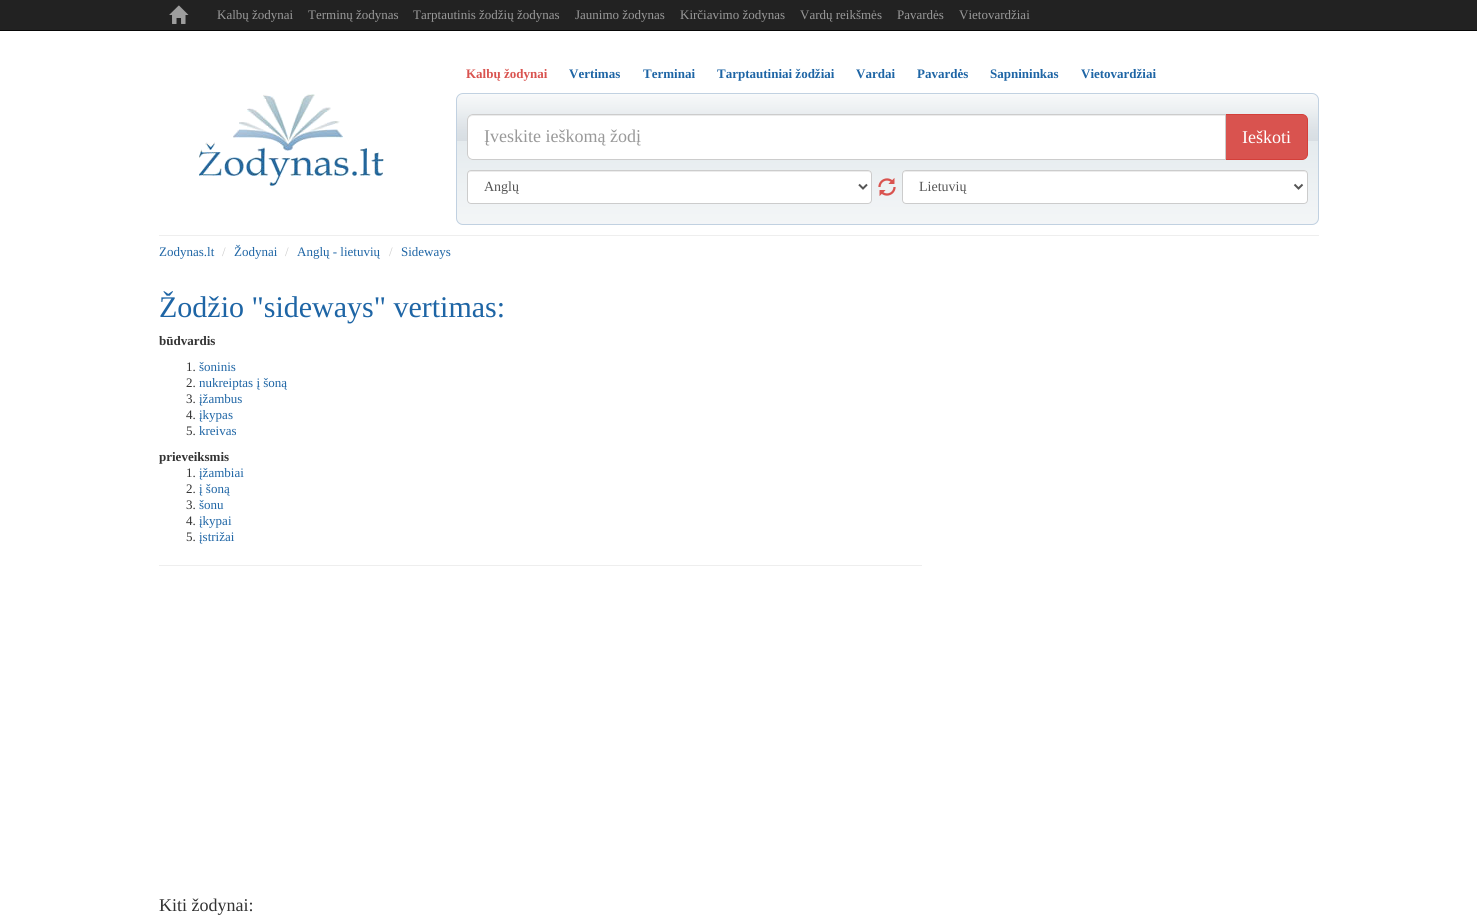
import math
import cairo

surface = cairo.ImageSurface(cairo.FORMAT_RGB24, 1477, 924)
ctx = cairo.Context(surface)
options = cairo.FontOptions()
options.set_hint_metrics(cairo.HINT_METRICS_OFF)
options.set_hint_style(cairo.HINT_STYLE_NONE)
ctx.set_font_options(options)
ctx.set_miter_limit(4)


def set_color(code):
    ctx.set_source_rgb(*(v / 255 for v in bytes.fromhex(code[-6:])))


def draw_text(x, y, s, family, size, color, bold=False, italic=False):
    ctx.select_font_face(family, cairo.FONT_SLANT_ITALIC if italic else cairo.FONT_SLANT_NORMAL, cairo.FONT_WEIGHT_BOLD if bold else cairo.FONT_WEIGHT_NORMAL)
    ctx.set_font_size(size)
    set_color(color)
    ctx.move_to(x, y)
    ctx.show_text(s)


def fill_rect(x, y, w, h, color):
    set_color(color)
    ctx.rectangle(x, y, w, h)
    ctx.fill()


def rounded_rect(x, y, w, h, r):
    ctx.new_sub_path()
    for i, (u, v) in enumerate([(x + w - r, y + h - r), (x + r, y + h - r), (x + r, y + r), (x + w - r, y + r)]):
        ctx.arc(u, v, r, i * math.pi / 2, (i + 1) * math.pi / 2)
    ctx.close_path()


def draw_image(path, x, y, w, h):
    ctx.save()
    ctx.set_source_surface(cairo.ImageSurface.create_from_png(path), x, y)
    ctx.rectangle(x, y, w, h)
    ctx.fill()
    ctx.restore()


set_color("#ffffff")
ctx.paint()
fill_rect(0, 0, 1477, 30, "#222222")
fill_rect(0, 30, 1477, 1, "#080808")
draw_image("assets/img1.png", 169, 5, 20, 19)
draw_text(217, 19, "Kalbų žodynai", "Liberation Serif", 13, "#999999")
draw_text(308, 19, "Terminų žodynas", "Liberation Serif", 13, "#999999")
draw_text(413, 19, "Tarptautinis žodžių žodynas", "Liberation Serif", 13, "#999999")
draw_text(575, 19, "Jaunimo žodynas", "Liberation Serif", 13, "#999999")
draw_text(680, 19, "Kirčiavimo žodynas", "Liberation Serif", 13, "#999999")
draw_text(800, 19, "Vardų reikšmės", "Liberation Serif", 13, "#999999")
draw_text(897, 19, "Pavardės", "Liberation Serif", 13, "#999999")
draw_text(959, 19, "Vietovardžiai", "Liberation Serif", 13, "#999999")
draw_image("assets/img2.png", 199, 94, 185, 92)
draw_text(466, 78, "Kalbų žodynai", "Liberation Serif", 13, "#d9534f", bold=True)
draw_text(569, 78, "Vertimas", "Liberation Serif", 13, "#1e65a5", bold=True)
draw_text(643, 78, "Terminai", "Liberation Serif", 13, "#1e65a5", bold=True)
draw_text(717, 78, "Tarptautiniai žodžiai", "Liberation Serif", 13, "#1e65a5", bold=True)
draw_text(856, 78, "Vardai", "Liberation Serif", 13, "#1e65a5", bold=True)
draw_text(917, 78, "Pavardės", "Liberation Serif", 13, "#1e65a5", bold=True)
draw_text(990, 78, "Sapnininkas", "Liberation Serif", 13, "#1e65a5", bold=True)
draw_text(1081, 78, "Vietovardžiai", "Liberation Serif", 13, "#1e65a5", bold=True)
draw_image("assets/img3.png", 456, 94, 863, 131)
rounded_rect(456.5, 93.5, 862, 131, 6.5)
set_color("#c1d1e1")
ctx.set_line_width(1)
ctx.stroke()
set_color("#d9534f")
ctx.new_path()
ctx.move_to(1225.5, 114.5)
ctx.line_to(1302, 114.5)
ctx.curve_to(1305, 114.5, 1307.5, 117, 1307.5, 120)
ctx.line_to(1307.5, 154)
ctx.curve_to(1307.5, 157, 1305, 159.5, 1302, 159.5)
ctx.line_to(1225.5, 159.5)
ctx.close_path()
ctx.fill_preserve()
set_color("#d43f3a")
ctx.stroke()
set_color("#ffffff")
ctx.new_path()
ctx.move_to(473, 114)
ctx.line_to(1226, 114)
ctx.line_to(1226, 160)
ctx.line_to(473, 160)
ctx.curve_to(469.5, 160, 467, 157.5, 467, 154)
ctx.line_to(467, 120)
ctx.curve_to(467, 116.5, 469.5, 114, 473, 114)
ctx.close_path()
ctx.fill()
set_color("#ececec")
ctx.new_path()
ctx.move_to(473, 116)
ctx.line_to(1225, 116)
ctx.line_to(1225, 115)
ctx.line_to(473, 115)
ctx.curve_to(470, 115, 468, 117, 468, 120)
ctx.line_to(468, 121)
ctx.curve_to(468, 118, 470, 116, 473, 116)
ctx.close_path()
ctx.fill()
ctx.new_path()
ctx.move_to(473, 114.5)
ctx.line_to(1225.5, 114.5)
ctx.line_to(1225.5, 159.5)
ctx.line_to(473, 159.5)
ctx.curve_to(470, 159.5, 467.5, 157, 467.5, 154)
ctx.line_to(467.5, 120)
ctx.curve_to(467.5, 117, 470, 114.5, 473, 114.5)
ctx.close_path()
set_color("#cccccc")
ctx.stroke()
draw_text(484, 142, "Įveskite ieškomą žodį", "Liberation Serif", 18, "#999999")
draw_text(1242, 143, "Ieškoti", "Liberation Serif", 18, "#ffffff")
rounded_rect(467, 170, 405, 34, 4)
ctx.fill()
set_color("#ececec")
ctx.new_path()
ctx.move_to(471, 172)
ctx.line_to(868, 172)
ctx.curve_to(870, 172, 871, 173, 871, 175)
ctx.curve_to(871, 173, 870, 171, 868, 171)
ctx.line_to(471, 171)
ctx.curve_to(469, 171, 468, 173, 468, 175)
ctx.curve_to(468, 173, 469, 172, 471, 172)
ctx.close_path()
ctx.fill()
rounded_rect(467.5, 170.5, 404, 33, 3.5)
set_color("#cccccc")
ctx.stroke()
ctx.new_path()
ctx.move_to(859, 184.5)
ctx.line_to(863, 188.5)
ctx.line_to(867, 184.5)
set_color("#555555")
ctx.set_line_width(2)
ctx.stroke()
draw_text(484, 191, "Anglų", "Liberation Serif", 14, "#555555")
draw_image("assets/img4.png", 878, 178, 18, 18)
set_color("#ffffff")
rounded_rect(902, 170, 406, 34, 4)
ctx.fill()
set_color("#ececec")
ctx.new_path()
ctx.move_to(906, 172)
ctx.line_to(1304, 172)
ctx.curve_to(1306, 172, 1307, 173, 1307, 175)
ctx.curve_to(1307, 173, 1306, 171, 1304, 171)
ctx.line_to(906, 171)
ctx.curve_to(904, 171, 903, 173, 903, 175)
ctx.curve_to(903, 173, 904, 172, 906, 172)
ctx.close_path()
ctx.fill()
rounded_rect(902.5, 170.5, 405, 33, 3.5)
set_color("#cccccc")
ctx.set_line_width(1)
ctx.stroke()
ctx.new_path()
ctx.move_to(1294.5, 184.5)
ctx.line_to(1298.5, 188.5)
ctx.line_to(1302.5, 184.5)
set_color("#555555")
ctx.set_line_width(2)
ctx.stroke()
draw_text(919, 191, "Lietuvių", "Liberation Serif", 14, "#555555")
fill_rect(159, 235, 1160, 1, "#eeeeee")
draw_text(159, 256, "Zodynas.lt", "Liberation Serif", 13, "#1e65a5")
draw_text(222, 256, "/", "Liberation Serif", 13, "#cccccc")
draw_text(234, 256, "Žodynai", "Liberation Serif", 13, "#1e65a5")
draw_text(285, 256, "/", "Liberation Serif", 13, "#cccccc")
draw_text(297, 256, "Anglų - lietuvių", "Liberation Serif", 13, "#1e65a5")
draw_text(389, 256, "/", "Liberation Serif", 13, "#cccccc")
draw_text(401, 256, "Sideways", "Liberation Serif", 13, "#1e65a5")
draw_text(159, 317, "Žodžio \"sideways\" vertimas:", "Liberation Serif", 30, "#1e65a5")
draw_text(159, 345, "būdvardis", "Liberation Serif", 13, "#333333", bold=True)
draw_text(186, 371, "1.", "Liberation Serif", 13, "#333333")
draw_text(199, 371, "šoninis", "Liberation Serif", 13, "#1e65a5")
draw_text(186, 387, "2.", "Liberation Serif", 13, "#333333")
draw_text(199, 387, "nukreiptas į šoną", "Liberation Serif", 13, "#1e65a5")
draw_text(186, 403, "3.", "Liberation Serif", 13, "#333333")
draw_text(199, 403, "įžambus", "Liberation Serif", 13, "#1e65a5")
draw_text(186, 419, "4.", "Liberation Serif", 13, "#333333")
draw_text(199, 419, "įkypas", "Liberation Serif", 13, "#1e65a5")
draw_text(186, 435, "5.", "Liberation Serif", 13, "#333333")
draw_text(199, 435, "kreivas", "Liberation Serif", 13, "#1e65a5")
draw_text(159, 461, "prieveiksmis", "Liberation Serif", 13, "#333333", bold=True)
draw_text(186, 477, "1.", "Liberation Serif", 13, "#333333")
draw_text(199, 477, "įžambiai", "Liberation Serif", 13, "#1e65a5")
draw_text(186, 493, "2.", "Liberation Serif", 13, "#333333")
draw_text(199, 493, "į šoną", "Liberation Serif", 13, "#1e65a5")
draw_text(186, 509, "3.", "Liberation Serif", 13, "#333333")
draw_text(199, 509, "šonu", "Liberation Serif", 13, "#1e65a5")
draw_text(186, 525, "4.", "Liberation Serif", 13, "#333333")
draw_text(199, 525, "įkypai", "Liberation Serif", 13, "#1e65a5")
draw_text(186, 541, "5.", "Liberation Serif", 13, "#333333")
draw_text(199, 541, "įstrižai", "Liberation Serif", 13, "#1e65a5")
fill_rect(159, 565, 763, 1, "#eeeeee")
draw_text(159, 911, "Kiti žodynai:", "Liberation Serif", 18, "#333333")
surface.write_to_png("output.png")
